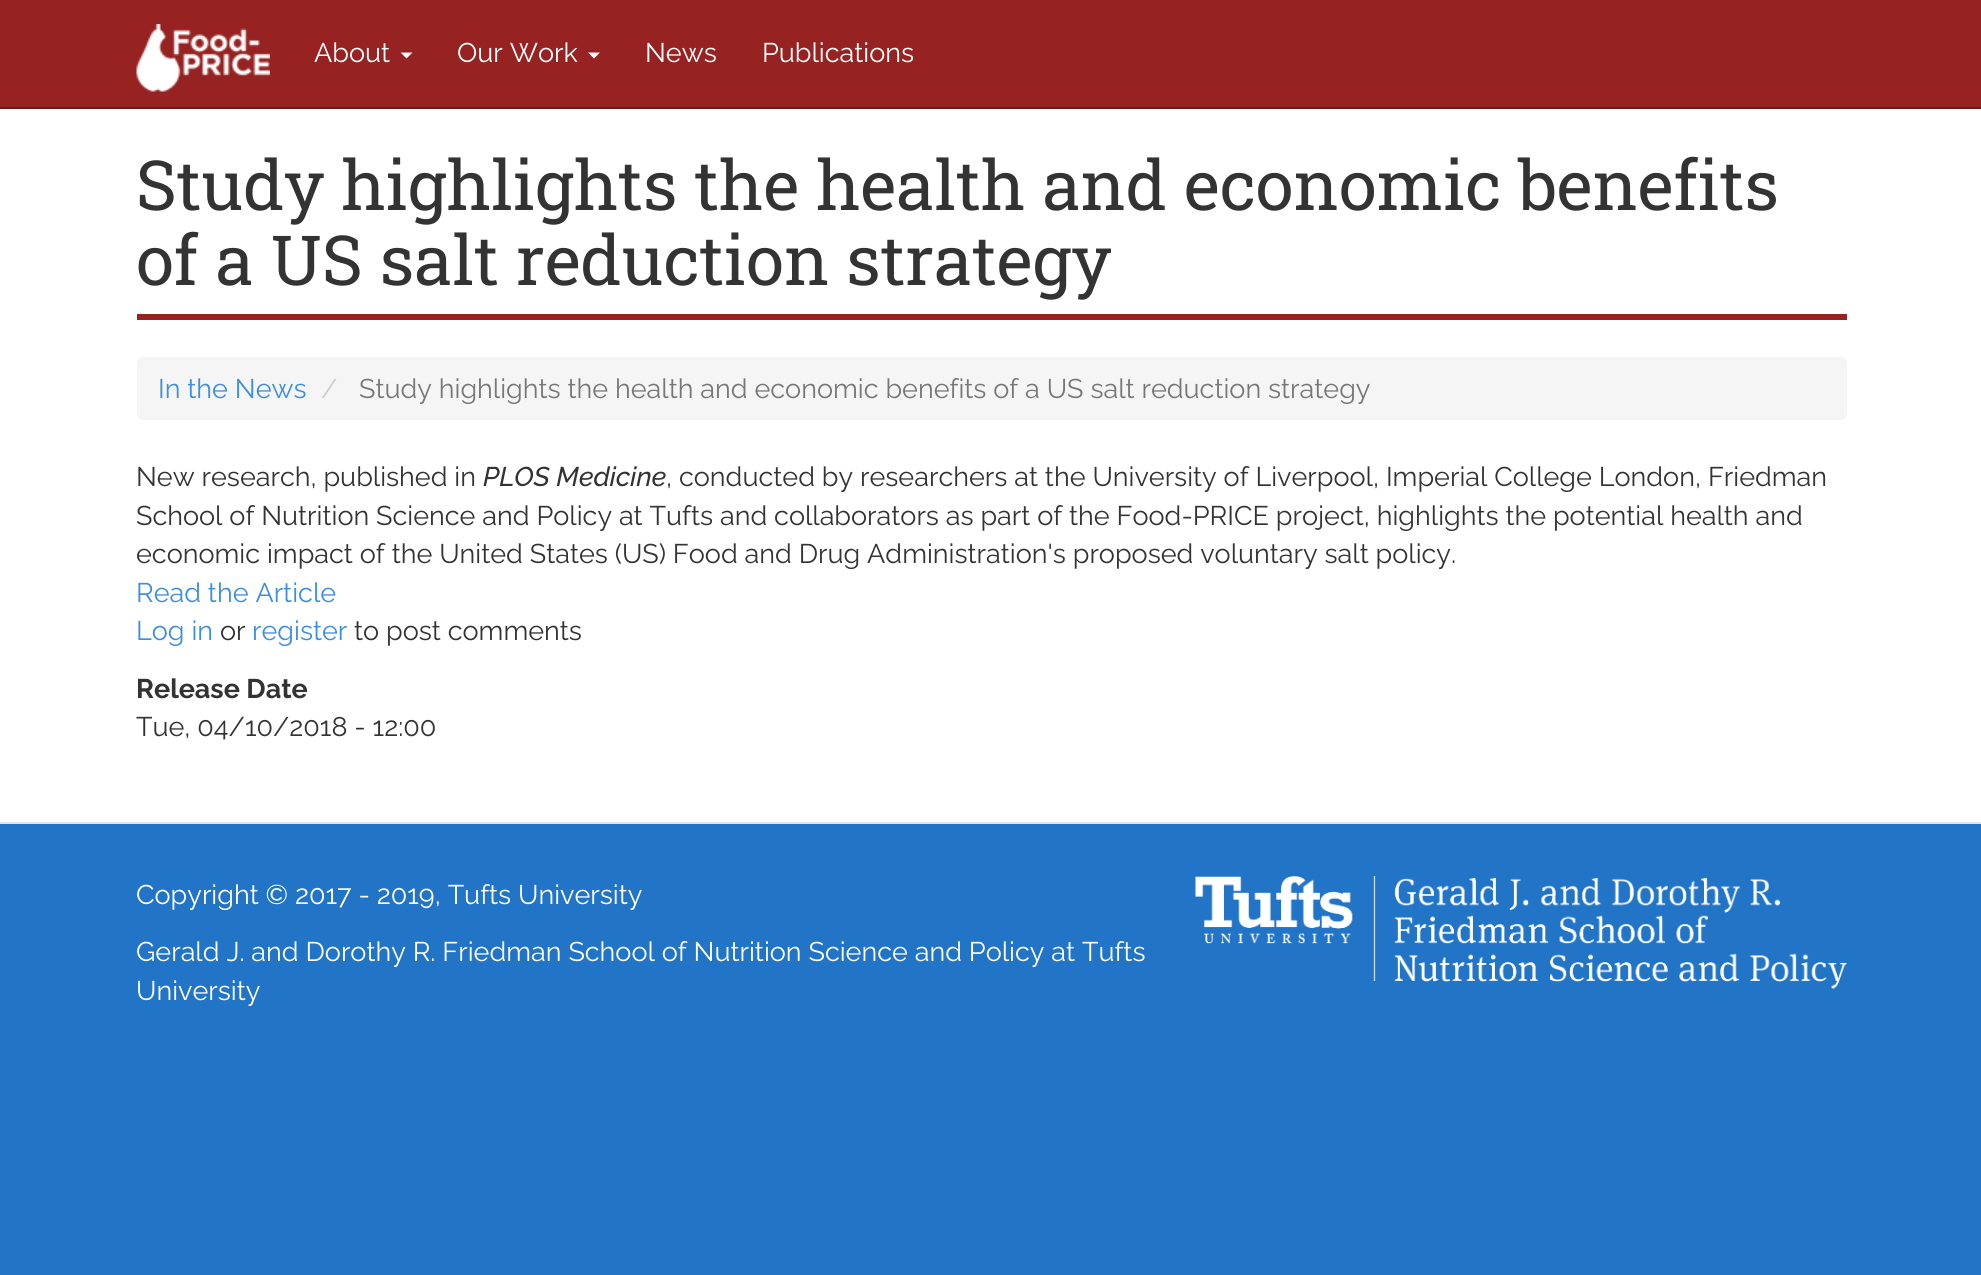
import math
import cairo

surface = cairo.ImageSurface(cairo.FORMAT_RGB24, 1981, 1275)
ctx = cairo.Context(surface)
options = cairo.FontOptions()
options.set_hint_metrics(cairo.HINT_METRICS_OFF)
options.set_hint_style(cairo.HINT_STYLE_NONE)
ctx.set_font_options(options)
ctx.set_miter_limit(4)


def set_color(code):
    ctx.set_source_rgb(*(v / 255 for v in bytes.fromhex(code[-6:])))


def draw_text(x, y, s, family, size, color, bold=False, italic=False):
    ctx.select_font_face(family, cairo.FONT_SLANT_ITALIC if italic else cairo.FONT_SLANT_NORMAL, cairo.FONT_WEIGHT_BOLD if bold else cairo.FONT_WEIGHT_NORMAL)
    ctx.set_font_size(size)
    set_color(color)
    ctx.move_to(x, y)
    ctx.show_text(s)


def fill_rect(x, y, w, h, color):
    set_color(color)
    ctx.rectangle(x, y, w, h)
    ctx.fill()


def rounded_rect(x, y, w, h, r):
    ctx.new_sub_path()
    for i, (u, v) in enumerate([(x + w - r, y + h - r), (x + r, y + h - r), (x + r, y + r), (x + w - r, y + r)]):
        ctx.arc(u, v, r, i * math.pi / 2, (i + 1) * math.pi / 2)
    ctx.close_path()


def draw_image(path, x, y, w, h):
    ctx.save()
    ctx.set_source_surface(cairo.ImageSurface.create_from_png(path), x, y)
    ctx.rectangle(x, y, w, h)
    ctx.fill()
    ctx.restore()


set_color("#2274c7")
ctx.paint()
fill_rect(0, 0, 1981, 107, "#972222")
fill_rect(0, 107, 1981, 2, "#6d1919")
draw_image("assets/img1.png", 136, 24, 134, 68)
draw_text(314, 62, "About", "Raleway", 27, "#ffffff")
ctx.new_path()
ctx.move_to(400.5, 52.5)
ctx.line_to(412.5, 52.5)
ctx.line_to(406.5, 58.5)
ctx.close_path()
ctx.fill()
draw_text(457, 62, "Our Work", "Raleway", 27, "#ffffff")
ctx.new_path()
ctx.move_to(588, 52.5)
ctx.line_to(600, 52.5)
ctx.line_to(594, 58.5)
ctx.close_path()
ctx.fill()
draw_text(645, 62, "News", "Raleway", 27, "#ffffff")
draw_text(762, 62, "Publications", "Raleway", 27, "#ffffff")
fill_rect(0, 109, 1981, 713, "#ffffff")
fill_rect(137, 314, 1710, 6, "#972222")
draw_text(136, 210, "Study highlights the health and economic benefits", "Roboto Slab", 69, "#333333")
draw_text(136, 285, "of a US salt reduction strategy", "Roboto Slab", 69, "#333333")
set_color("#f5f5f5")
rounded_rect(137, 357, 1710, 63, 6)
ctx.fill()
draw_text(158, 398, "In the News", "Raleway", 27, "#3e8ede")
draw_text(321, 398, "/", "Raleway", 27, "#cccccc")
draw_text(359, 398, "Study highlights the health and economic benefits of a US salt reduction strategy", "Raleway", 27, "#777777")
draw_text(136, 486, "New research, published in", "Raleway", 27, "#333333")
draw_text(483, 486, "PLOS Medicine", "Raleway Thin", 27, "#333333", italic=True)
draw_text(666, 486, ", conducted by researchers at the University of Liverpool, Imperial College London, Friedman", "Raleway", 27, "#333333")
draw_text(136, 525, "School of Nutrition Science and Policy at Tufts and collaborators as part of the Food-PRICE project, highlights the potential health and", "Raleway", 27, "#333333")
draw_text(136, 563, "economic impact of the United States (US) Food and Drug Administration's proposed voluntary salt policy.", "Raleway", 27, "#333333")
draw_text(136, 602, "Read the Article", "Raleway", 27, "#3e8ede")
draw_text(136, 640, "Log in", "Raleway", 27, "#3e8ede")
draw_text(220, 640, "or", "Raleway", 27, "#333333")
draw_text(252, 640, "register", "Raleway", 27, "#3e8ede")
draw_text(354, 640, "to post comments", "Raleway", 27, "#333333")
draw_text(136, 698, "Release Date", "Raleway", 27, "#333333", bold=True)
draw_text(136, 736, "Tue, 04/10/2018 - 12:00", "Raleway", 27, "#333333")
fill_rect(0, 822, 1981, 2, "#e5e5e5")
draw_text(136, 904, "Copyright © 2017 - 2019, Tufts University", "Raleway", 27, "#ffffff")
draw_image("assets/img2.png", 1195, 876, 652, 113)
draw_text(136, 961, "Gerald J. and Dorothy R. Friedman School of Nutrition Science and Policy at Tufts", "Raleway", 27, "#ffffff")
draw_text(136, 1000, "University", "Raleway", 27, "#ffffff")
surface.write_to_png("output.png")
